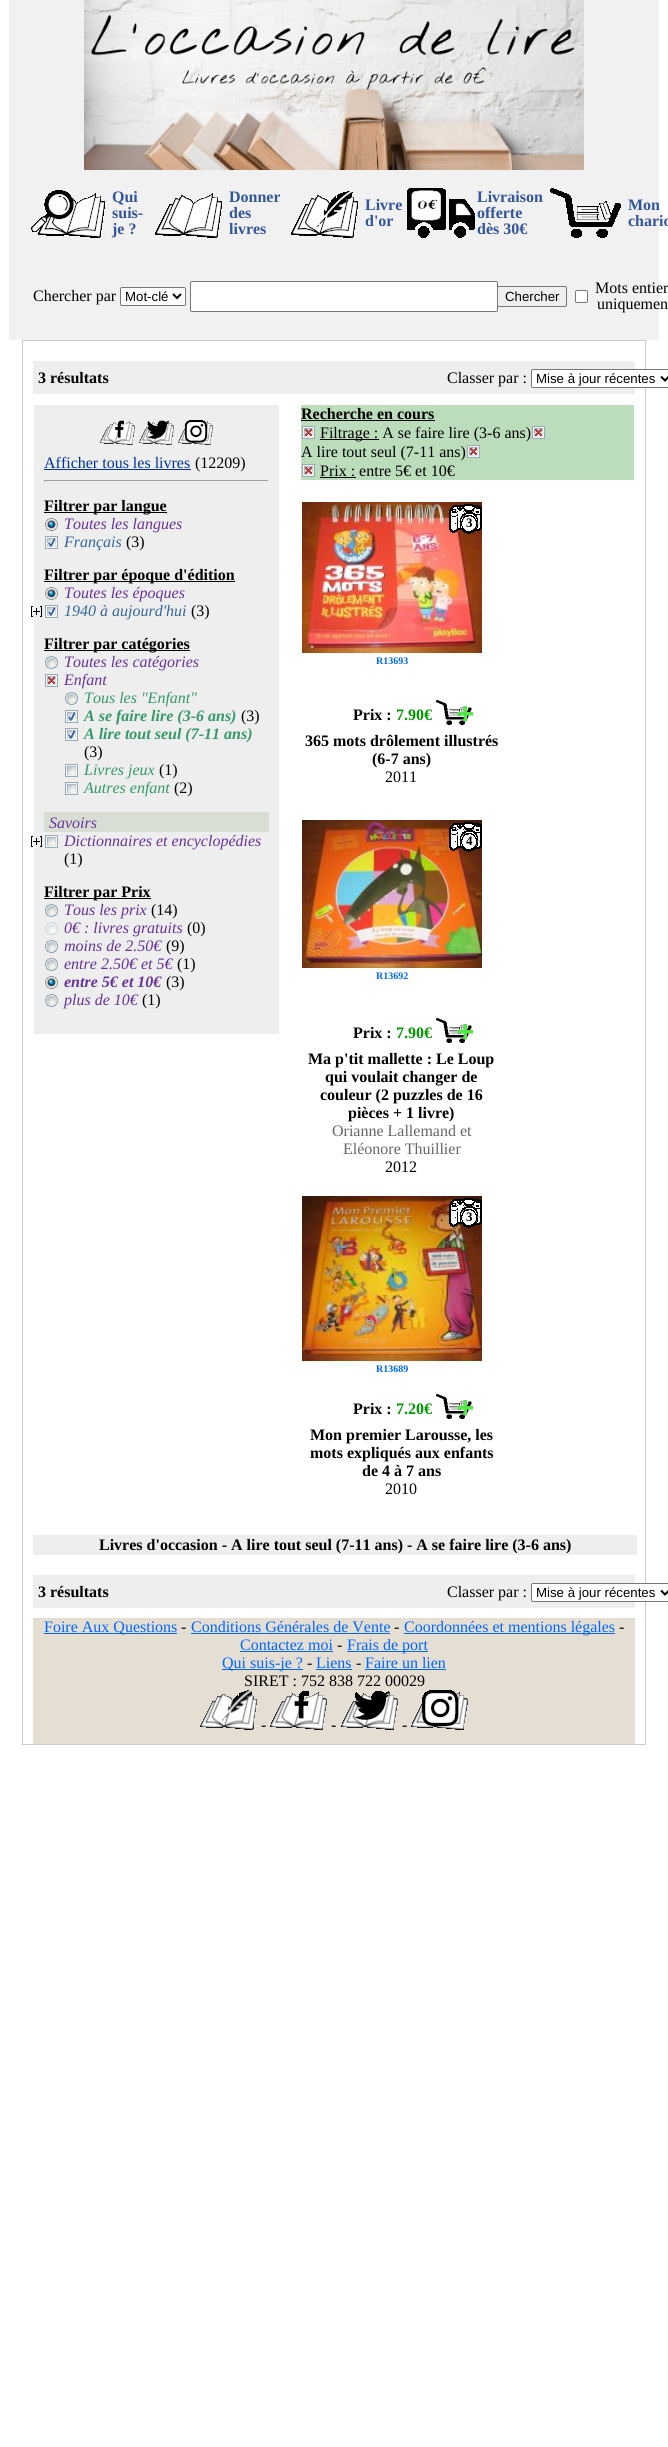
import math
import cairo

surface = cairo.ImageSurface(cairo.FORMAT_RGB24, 668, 2447)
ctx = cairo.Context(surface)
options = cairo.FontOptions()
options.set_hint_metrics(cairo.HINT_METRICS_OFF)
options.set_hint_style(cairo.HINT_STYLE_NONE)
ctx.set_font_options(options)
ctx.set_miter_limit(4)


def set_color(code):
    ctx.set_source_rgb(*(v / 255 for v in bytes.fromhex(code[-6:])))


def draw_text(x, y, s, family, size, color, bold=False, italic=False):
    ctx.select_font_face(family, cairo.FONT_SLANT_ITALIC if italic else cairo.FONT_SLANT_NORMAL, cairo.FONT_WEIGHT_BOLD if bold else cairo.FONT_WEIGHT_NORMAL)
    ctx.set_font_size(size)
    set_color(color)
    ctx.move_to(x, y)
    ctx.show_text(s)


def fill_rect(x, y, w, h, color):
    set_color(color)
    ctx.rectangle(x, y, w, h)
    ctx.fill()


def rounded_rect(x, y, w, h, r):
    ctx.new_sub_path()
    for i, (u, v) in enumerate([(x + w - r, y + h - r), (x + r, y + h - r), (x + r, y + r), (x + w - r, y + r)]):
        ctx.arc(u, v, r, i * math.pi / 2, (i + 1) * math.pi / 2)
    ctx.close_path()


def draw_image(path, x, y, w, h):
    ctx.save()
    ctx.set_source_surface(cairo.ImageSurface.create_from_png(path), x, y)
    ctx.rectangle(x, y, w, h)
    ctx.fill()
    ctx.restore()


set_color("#ffffff")
ctx.paint()
fill_rect(9, 0, 650, 340, "#f1f1f1")
draw_image("assets/img1.png", 84, 0, 500, 170)
draw_image("assets/img2.png", 31, 190, 74, 48)
draw_text(112, 202, "Qui", "Liberation Serif", 16, "#335599", bold=True)
draw_text(112, 218, "suis-", "Liberation Serif", 16, "#335599", bold=True)
draw_text(112, 234, "je ?", "Liberation Serif", 16, "#335599", bold=True)
draw_image("assets/img3.png", 155, 193, 67, 45)
draw_text(229, 202, "Donner", "Liberation Serif", 16, "#335599", bold=True)
draw_text(229, 218, "des", "Liberation Serif", 16, "#335599", bold=True)
draw_text(229, 234, "livres", "Liberation Serif", 16, "#335599", bold=True)
draw_image("assets/img4.png", 291, 191, 67, 47)
draw_text(365, 210, "Livre", "Liberation Serif", 16, "#335599", bold=True)
draw_text(365, 226, "d'or", "Liberation Serif", 16, "#335599", bold=True)
draw_image("assets/img5.png", 407, 188, 68, 50)
draw_text(477, 202, "Livraison", "Liberation Serif", 16, "#335599", bold=True)
draw_text(477, 218, "offerte", "Liberation Serif", 16, "#335599", bold=True)
draw_text(477, 234, "dès 30€", "Liberation Serif", 16, "#335599", bold=True)
draw_image("assets/img6.png", 550, 188, 71, 50)
draw_text(628, 210, "Mon", "Liberation Serif", 16, "#335599", bold=True)
draw_text(628, 226, "chario", "Liberation Serif", 16, "#335599", bold=True)
draw_text(33, 301, "Chercher par", "Liberation Serif", 16, "#000000")
set_color("#ffffff")
rounded_rect(120.5, 287.5, 65, 18, 1.5)
ctx.fill_preserve()
set_color("#767676")
ctx.set_line_width(1)
ctx.stroke()
ctx.new_path()
ctx.move_to(173, 294)
ctx.line_to(177, 298)
ctx.line_to(181, 294)
set_color("#000000")
ctx.set_line_width(2)
ctx.stroke()
draw_text(125, 301, "Mot-clé", "Liberation Sans", 13.25, "#000000")
set_color("#ffffff")
rounded_rect(190.5, 281.5, 307, 30, 1.5)
ctx.fill_preserve()
set_color("#767676")
ctx.set_line_width(1)
ctx.stroke()
set_color("#efefef")
rounded_rect(497.5, 286.5, 69, 20, 1.5)
ctx.fill_preserve()
set_color("#767676")
ctx.stroke()
draw_text(505, 301, "Chercher", "Liberation Sans", 13.25, "#000000")
set_color("#ffffff")
rounded_rect(575.5, 290.5, 12, 12, 1.5)
ctx.fill_preserve()
set_color("#767676")
ctx.stroke()
draw_text(595, 293, "Mots entier", "Liberation Serif", 16, "#000000")
draw_text(597, 309, "uniquemen", "Liberation Serif", 16, "#000000")
ctx.rectangle(22.5, 340.5, 623, 1404)
set_color("#cccccc")
ctx.stroke()
fill_rect(33, 361, 602, 33, "#eeeeee")
draw_text(38, 383, "3 résultats", "Liberation Serif", 16, "#000000", bold=True)
draw_text(447, 383, "Classer par :", "Liberation Serif", 16, "#000000")
set_color("#ffffff")
rounded_rect(531.5, 369.5, 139, 18, 1.5)
ctx.fill_preserve()
set_color("#767676")
ctx.stroke()
ctx.new_path()
ctx.move_to(661, 376.5)
ctx.line_to(665, 380.5)
ctx.line_to(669, 376.5)
set_color("#000000")
ctx.set_line_width(2)
ctx.stroke()
draw_text(536, 383, "Mise à jour récentes", "Liberation Sans", 13.25, "#000000")
fill_rect(34, 405, 245, 629, "#eeeeee")
draw_image("assets/img7.png", 100, 420, 35, 25)
draw_image("assets/img8.png", 139, 420, 35, 25)
draw_image("assets/img9.png", 178, 420, 35, 25)
draw_text(44, 468, "Afficher tous les livres", "Liberation Serif", 16, "#003399")
fill_rect(44, 469, 147, 1, "#003399")
draw_text(195, 468, "(12209)", "Liberation Serif", 16, "#000000")
fill_rect(44, 480, 225, 1, "#9f9f9f")
fill_rect(268, 480, 1, 2, "#eeeeee")
fill_rect(44, 480, 1, 2, "#9f9f9f")
fill_rect(44, 512, 123, 1, "#000000")
draw_text(44, 511, "Filtrer par langue", "Liberation Serif", 16, "#000000", bold=True)
draw_image("assets/img10.png", 45, 518, 13, 13)
draw_text(64, 529, "Toutes les langues", "Liberation Serif", 16, "#663399", italic=True)
draw_image("assets/img11.png", 45, 536, 13, 13)
draw_text(64, 547, "Français", "Liberation Serif", 16, "#336699", italic=True)
draw_text(126, 547, "(3)", "Liberation Serif", 16, "#000000")
fill_rect(44, 581, 191, 1, "#000000")
draw_text(44, 580, "Filtrer par époque d'édition", "Liberation Serif", 16, "#000000", bold=True)
draw_image("assets/img10.png", 45, 587, 13, 13)
draw_text(64, 598, "Toutes les époques", "Liberation Serif", 16, "#663399", italic=True)
draw_image("assets/img12.png", 31, 606, 11, 11)
draw_image("assets/img11.png", 45, 605, 13, 13)
draw_text(64, 616, "1940 à aujourd'hui", "Liberation Serif", 16, "#336699", italic=True)
draw_text(191, 616, "(3)", "Liberation Serif", 16, "#000000")
fill_rect(44, 650, 146, 1, "#000000")
draw_text(44, 649, "Filtrer par catégories", "Liberation Serif", 16, "#000000", bold=True)
draw_image("assets/img13.png", 45, 656, 13, 13)
draw_text(64, 667, "Toutes les catégories", "Liberation Serif", 16, "#663399", italic=True)
draw_image("assets/img14.png", 45, 674, 13, 13)
draw_text(64, 685, "Enfant", "Liberation Serif", 16, "#663399", italic=True)
draw_image("assets/img13.png", 65, 692, 13, 13)
draw_text(84, 703, "Tous les \"Enfant\"", "Liberation Serif", 16, "#339966", italic=True)
draw_image("assets/img11.png", 65, 710, 13, 13)
draw_text(84, 721, "A se faire lire (3-6 ans)", "Liberation Serif", 16, "#339966", bold=True, italic=True)
draw_text(241, 721, "(3)", "Liberation Serif", 16, "#000000")
draw_image("assets/img11.png", 65, 728, 13, 13)
draw_text(84, 739, "A lire tout seul (7-11 ans)", "Liberation Serif", 16, "#339966", bold=True, italic=True)
draw_text(84, 757, "(3)", "Liberation Serif", 16, "#000000")
draw_image("assets/img15.png", 65, 764, 13, 13)
draw_text(84, 775, "Livres jeux", "Liberation Serif", 16, "#339966", italic=True)
draw_text(159, 775, "(1)", "Liberation Serif", 16, "#000000")
draw_image("assets/img15.png", 65, 782, 13, 13)
draw_text(84, 793, "Autres enfant", "Liberation Serif", 16, "#339966", italic=True)
draw_text(174, 793, "(2)", "Liberation Serif", 16, "#000000")
fill_rect(44, 812, 225, 20, "#d9ded4")
draw_text(49, 828, "Savoirs", "Liberation Serif", 16, "#663399", italic=True)
draw_image("assets/img12.png", 31, 836, 11, 11)
draw_image("assets/img15.png", 45, 835, 13, 13)
draw_text(64, 846, "Dictionnaires et encyclopédies", "Liberation Serif", 16, "#663399", italic=True)
draw_text(64, 864, "(1)", "Liberation Serif", 16, "#000000")
fill_rect(44, 898, 107, 1, "#000000")
draw_text(44, 897, "Filtrer par Prix", "Liberation Serif", 16, "#000000", bold=True)
draw_image("assets/img13.png", 45, 904, 13, 13)
draw_text(64, 915, "Tous les prix", "Liberation Serif", 16, "#663399", italic=True)
draw_text(151, 915, "(14)", "Liberation Serif", 16, "#000000")
draw_image("assets/img16.png", 45, 922, 13, 13)
draw_text(64, 933, "0€ : livres gratuits", "Liberation Serif", 16, "#663399", italic=True)
draw_text(187, 933, "(0)", "Liberation Serif", 16, "#000000")
draw_image("assets/img13.png", 45, 940, 13, 13)
draw_text(64, 951, "moins de 2.50€", "Liberation Serif", 16, "#663399", italic=True)
draw_text(166, 951, "(9)", "Liberation Serif", 16, "#000000")
draw_image("assets/img13.png", 45, 958, 13, 13)
draw_text(64, 969, "entre 2.50€ et 5€", "Liberation Serif", 16, "#663399", italic=True)
draw_text(177, 969, "(1)", "Liberation Serif", 16, "#000000")
draw_image("assets/img10.png", 45, 976, 13, 13)
draw_text(64, 987, "entre 5€ et 10€", "Liberation Serif", 16, "#663399", bold=True, italic=True)
draw_text(166, 987, "(3)", "Liberation Serif", 16, "#000000")
draw_image("assets/img13.png", 45, 994, 13, 13)
draw_text(64, 1005, "plus de 10€", "Liberation Serif", 16, "#663399", italic=True)
draw_text(142, 1005, "(1)", "Liberation Serif", 16, "#000000")
fill_rect(301, 405, 333, 75, "#bbddbb")
draw_text(301, 419, "Recherche en cours", "Liberation Serif", 16, "#000000", bold=True)
fill_rect(301, 420, 134, 1, "#000000")
draw_image("assets/img14.png", 302, 426, 13, 13)
fill_rect(320, 439, 59, 1, "#000000")
draw_text(320, 438, "Filtrage : A se faire lire (3-6 ans)", "Liberation Serif", 16, "#000000")
draw_image("assets/img14.png", 532, 426, 13, 13)
draw_text(301, 457, "A lire tout seul (7-11 ans)", "Liberation Serif", 16, "#000000")
draw_image("assets/img14.png", 467, 445, 13, 13)
draw_image("assets/img14.png", 302, 464, 13, 13)
draw_text(320, 476, "Prix : entre 5€ et 10€", "Liberation Serif", 16, "#000000")
fill_rect(320, 477, 36, 1, "#000000")
draw_image("assets/img17.png", 302, 502, 180, 151)
draw_image("assets/img18.png", 449, 504, 33, 30)
draw_text(466, 527, "3", "Liberation Serif", 13, "#000000", bold=True)
draw_text(376, 664, "R13693", "Liberation Serif", 10, "#0066ff", bold=True)
draw_text(353, 720, "Prix :", "Liberation Serif", 16, "#000000", bold=True)
draw_text(396, 720, "7.90€", "Liberation Serif", 16, "#009900", bold=True)
draw_image("assets/img19.png", 436, 700, 37, 25)
draw_text(305, 746, "365 mots drôlement illustrés", "Liberation Serif", 16, "#000000", bold=True)
draw_text(372, 764, "(6-7 ans)", "Liberation Serif", 16, "#000000", bold=True)
draw_text(385, 782, "2011", "Liberation Serif", 16, "#000000")
draw_image("assets/img20.png", 302, 820, 180, 148)
draw_image("assets/img21.png", 449, 822, 33, 30)
draw_text(466, 845, "4", "Liberation Serif", 13, "#000000", bold=True)
draw_text(376, 979, "R13692", "Liberation Serif", 10, "#0066ff", bold=True)
draw_text(353, 1038, "Prix :", "Liberation Serif", 16, "#000000", bold=True)
draw_text(396, 1038, "7.90€", "Liberation Serif", 16, "#009900", bold=True)
draw_image("assets/img19.png", 436, 1018, 37, 25)
draw_text(308, 1064, "Ma p'tit mallette : Le Loup", "Liberation Serif", 16, "#000000", bold=True)
draw_text(325, 1082, "qui voulait changer de", "Liberation Serif", 16, "#000000", bold=True)
draw_text(320, 1100, "couleur (2 puzzles de 16", "Liberation Serif", 16, "#000000", bold=True)
draw_text(348, 1118, "pièces + 1 livre)", "Liberation Serif", 16, "#000000", bold=True)
draw_text(332, 1136, "Orianne Lallemand et", "Liberation Serif", 16, "#666666")
draw_text(343, 1154, "Eléonore Thuillier", "Liberation Serif", 16, "#666666")
draw_text(385, 1172, "2012", "Liberation Serif", 16, "#000000")
draw_image("assets/img22.png", 302, 1196, 180, 165)
draw_image("assets/img23.png", 449, 1198, 33, 30)
draw_text(466, 1221, "3", "Liberation Serif", 13, "#000000", bold=True)
draw_text(376, 1372, "R13689", "Liberation Serif", 10, "#0066ff", bold=True)
draw_text(353, 1414, "Prix :", "Liberation Serif", 16, "#000000", bold=True)
draw_text(396, 1414, "7.20€", "Liberation Serif", 16, "#009900", bold=True)
draw_image("assets/img19.png", 436, 1394, 37, 25)
draw_text(310, 1440, "Mon premier Larousse, les", "Liberation Serif", 16, "#000000", bold=True)
draw_text(310, 1458, "mots expliqués aux enfants", "Liberation Serif", 16, "#000000", bold=True)
draw_text(362, 1476, "de 4 à 7 ans", "Liberation Serif", 16, "#000000", bold=True)
draw_text(385, 1494, "2010", "Liberation Serif", 16, "#000000")
fill_rect(33, 1535, 604, 20, "#eeeeee")
draw_text(99, 1550, "Livres d'occasion - A lire tout seul (7-11 ans) - A se faire lire (3-6 ans)", "Liberation Serif", 16, "#000000", bold=True)
fill_rect(33, 1575, 602, 33, "#eeeeee")
draw_text(38, 1597, "3 résultats", "Liberation Serif", 16, "#000000", bold=True)
draw_text(447, 1597, "Classer par :", "Liberation Serif", 16, "#000000")
set_color("#ffffff")
rounded_rect(531.5, 1583.5, 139, 18, 1.5)
ctx.fill_preserve()
set_color("#767676")
ctx.set_line_width(1)
ctx.stroke()
ctx.new_path()
ctx.move_to(661, 1590.5)
ctx.line_to(665, 1594.5)
ctx.line_to(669, 1590.5)
set_color("#000000")
ctx.set_line_width(2)
ctx.stroke()
draw_text(536, 1597, "Mise à jour récentes", "Liberation Sans", 13.25, "#000000")
fill_rect(33, 1618, 602, 126, "#e5ded2")
fill_rect(44, 1633, 133, 1, "#0066ff")
draw_text(44, 1632, "Foire Aux Questions", "Liberation Serif", 16, "#0066ff")
draw_text(181, 1632, "-", "Liberation Serif", 16, "#000000")
draw_text(191, 1632, "Conditions Générales de Vente", "Liberation Serif", 16, "#0066ff")
fill_rect(191, 1633, 199, 1, "#0066ff")
draw_text(394, 1632, "-", "Liberation Serif", 16, "#000000")
fill_rect(404, 1633, 211, 1, "#0066ff")
draw_text(404, 1632, "Coordonnées et mentions légales", "Liberation Serif", 16, "#0066ff")
draw_text(619, 1632, "-", "Liberation Serif", 16, "#000000")
draw_text(240, 1650, "Contactez moi", "Liberation Serif", 16, "#0066ff")
fill_rect(240, 1651, 93, 1, "#0066ff")
draw_text(337, 1650, "-", "Liberation Serif", 16, "#000000")
fill_rect(347, 1651, 81, 1, "#0066ff")
draw_text(347, 1650, "Frais de port", "Liberation Serif", 16, "#0066ff")
fill_rect(222, 1669, 81, 1, "#0066ff")
draw_text(222, 1668, "Qui suis-je ?", "Liberation Serif", 16, "#0066ff")
draw_text(307, 1668, "-", "Liberation Serif", 16, "#000000")
draw_text(316, 1668, "Liens", "Liberation Serif", 16, "#0066ff")
fill_rect(316, 1669, 36, 1, "#0066ff")
draw_text(356, 1668, "-", "Liberation Serif", 16, "#000000")
draw_text(365, 1668, "Faire un lien", "Liberation Serif", 16, "#0066ff")
fill_rect(365, 1669, 81, 1, "#0066ff")
draw_text(244, 1686, "SIRET : 752 838 722 00029", "Liberation Serif", 16, "#000000")
draw_image("assets/img24.png", 200, 1690, 57, 40)
draw_text(261, 1730, "-", "Liberation Serif", 16, "#000000")
draw_image("assets/img25.png", 270, 1691, 57, 39)
draw_text(331, 1730, "-", "Liberation Serif", 16, "#000000")
draw_image("assets/img26.png", 341, 1691, 57, 39)
draw_text(402, 1730, "-", "Liberation Serif", 16, "#000000")
draw_image("assets/img27.png", 411, 1690, 57, 40)
surface.write_to_png("output.png")
